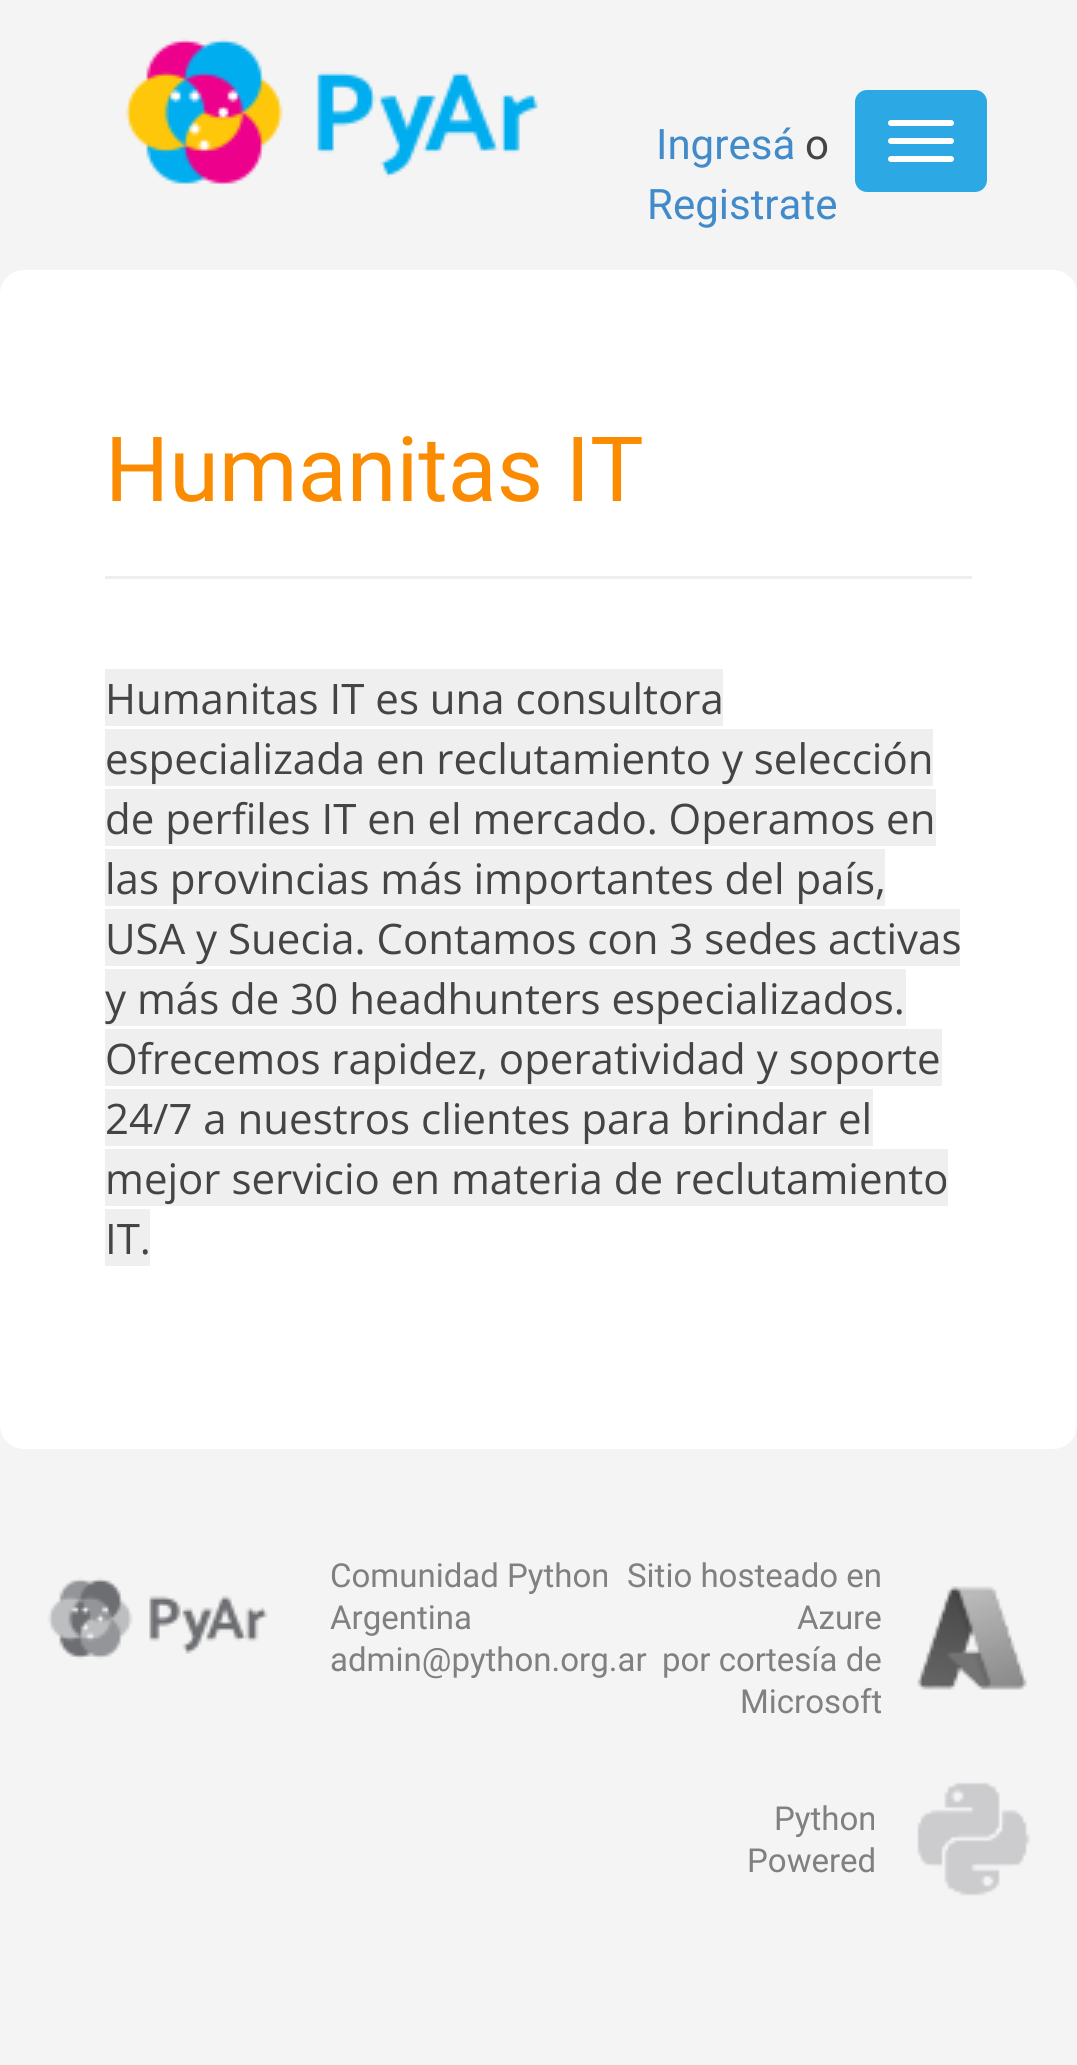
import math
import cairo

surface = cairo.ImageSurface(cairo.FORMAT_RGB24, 1077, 2065)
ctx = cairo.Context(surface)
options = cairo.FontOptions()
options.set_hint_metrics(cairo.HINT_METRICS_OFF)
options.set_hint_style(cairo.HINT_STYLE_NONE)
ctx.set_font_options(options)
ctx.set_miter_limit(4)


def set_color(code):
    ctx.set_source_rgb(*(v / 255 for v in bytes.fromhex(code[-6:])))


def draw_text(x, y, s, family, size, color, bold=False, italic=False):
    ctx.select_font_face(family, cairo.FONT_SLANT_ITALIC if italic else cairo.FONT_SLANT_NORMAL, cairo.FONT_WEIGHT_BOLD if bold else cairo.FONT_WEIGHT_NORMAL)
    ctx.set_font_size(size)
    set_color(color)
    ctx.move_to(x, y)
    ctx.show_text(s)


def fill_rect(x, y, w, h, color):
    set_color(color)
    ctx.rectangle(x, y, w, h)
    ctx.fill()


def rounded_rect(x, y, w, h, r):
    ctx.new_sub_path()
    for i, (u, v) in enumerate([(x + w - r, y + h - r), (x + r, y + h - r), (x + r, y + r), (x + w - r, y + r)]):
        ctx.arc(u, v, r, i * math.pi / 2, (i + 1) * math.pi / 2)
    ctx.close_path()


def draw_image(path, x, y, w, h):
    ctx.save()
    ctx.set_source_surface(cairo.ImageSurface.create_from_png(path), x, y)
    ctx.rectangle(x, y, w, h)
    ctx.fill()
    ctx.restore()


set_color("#f4f4f4")
ctx.paint()
draw_image("assets/img1.png", 125, 38, 413, 148)
draw_text(656, 159, "Ingresá", "Roboto", 42, "#428bca")
draw_text(805, 159, "o", "Roboto", 42, "#444444")
draw_text(647, 219, "Registrate", "Roboto", 42, "#428bca")
set_color("#2ca8e4")
rounded_rect(855, 90, 132, 102, 12)
ctx.fill()
set_color("#ffffff")
rounded_rect(888, 120, 66, 6, 3)
ctx.fill()
rounded_rect(888, 138, 66, 6, 3)
ctx.fill()
rounded_rect(888, 156, 66, 6, 3)
ctx.fill()
rounded_rect(0, 270, 1077, 1179, 24)
ctx.fill()
fill_rect(105, 576, 867, 3, "#eeeeee")
draw_text(105, 501, "Humanitas IT", "Roboto", 90, "#fb8b00")
fill_rect(105, 669, 618, 57, "#efefef")
draw_text(105, 714, "Humanitas IT es una consultora", "Open Sans", 42, "#444444")
fill_rect(105, 729, 828, 57, "#efefef")
draw_text(105, 774, "especializada en reclutamiento y selección", "Open Sans", 42, "#444444")
fill_rect(105, 789, 831, 57, "#efefef")
draw_text(105, 834, "de perfiles IT en el mercado. Operamos en", "Open Sans", 42, "#444444")
fill_rect(105, 849, 780, 57, "#efefef")
draw_text(105, 894, "las provincias más importantes del país,", "Open Sans", 42, "#444444")
fill_rect(105, 909, 855, 57, "#efefef")
draw_text(105, 954, "USA y Suecia. Contamos con 3 sedes activas", "Open Sans", 42, "#444444")
fill_rect(105, 969, 801, 57, "#efefef")
draw_text(105, 1014, "y más de 30 headhunters especializados.", "Open Sans", 42, "#444444")
fill_rect(105, 1029, 837, 57, "#efefef")
draw_text(105, 1074, "Ofrecemos rapidez, operatividad y soporte", "Open Sans", 42, "#444444")
fill_rect(105, 1089, 768, 57, "#efefef")
draw_text(105, 1134, "24/7 a nuestros clientes para brindar el", "Open Sans", 42, "#444444")
fill_rect(105, 1149, 843, 57, "#efefef")
draw_text(105, 1194, "mejor servicio en materia de reclutamiento", "Open Sans", 42, "#444444")
fill_rect(105, 1209, 45, 57, "#efefef")
draw_text(105, 1254, "IT.", "Open Sans", 42, "#444444")
draw_image("assets/img2.png", 47, 1577, 221, 83)
draw_text(330, 1587, "Comunidad Python", "Roboto", 33, "#808080")
draw_text(330, 1629, "Argentina", "Roboto", 33, "#808080")
draw_text(330, 1671, "admin@python.org.ar", "Roboto", 33, "#808080")
draw_image("assets/img3.png", 917, 1586, 110, 104)
draw_text(627, 1587, "Sitio hosteado en", "Roboto", 33, "#808080")
draw_text(797, 1629, "Azure", "Roboto", 33, "#808080")
draw_text(662, 1671, "por cortesía de", "Roboto", 33, "#808080")
draw_text(740, 1713, "Microsoft", "Roboto", 33, "#808080")
draw_image("assets/img4.png", 917, 1782, 113, 114)
draw_text(774, 1830, "Python", "Roboto", 33, "#808080")
draw_text(747, 1872, "Powered", "Roboto", 33, "#808080")
surface.write_to_png("output.png")
